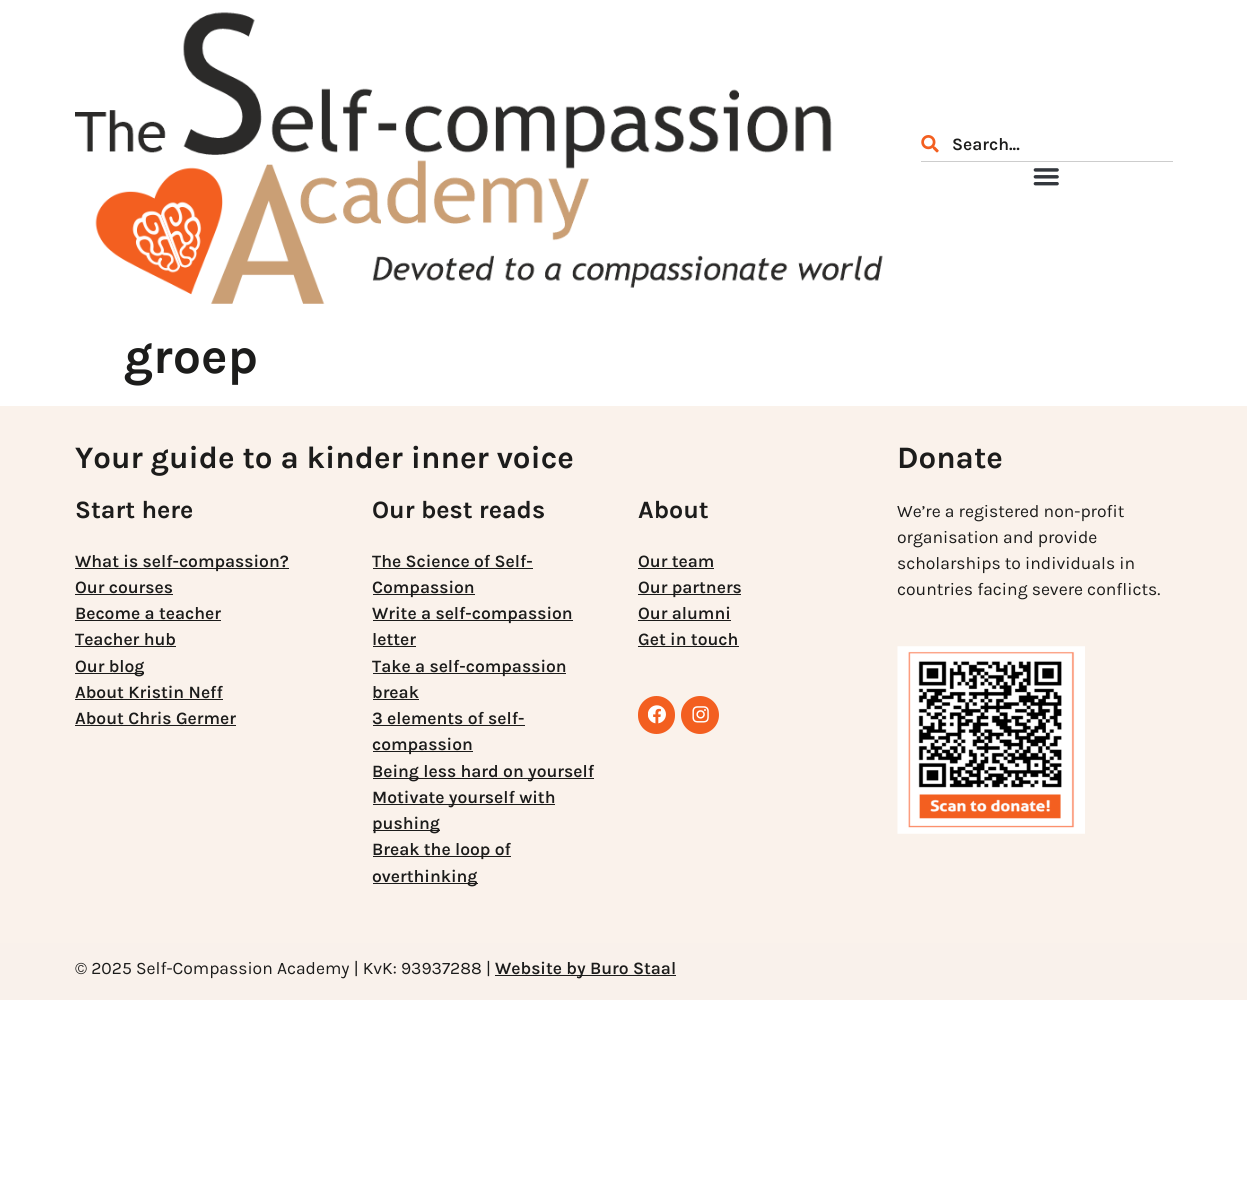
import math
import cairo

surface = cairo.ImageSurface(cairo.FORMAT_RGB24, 1247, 1197)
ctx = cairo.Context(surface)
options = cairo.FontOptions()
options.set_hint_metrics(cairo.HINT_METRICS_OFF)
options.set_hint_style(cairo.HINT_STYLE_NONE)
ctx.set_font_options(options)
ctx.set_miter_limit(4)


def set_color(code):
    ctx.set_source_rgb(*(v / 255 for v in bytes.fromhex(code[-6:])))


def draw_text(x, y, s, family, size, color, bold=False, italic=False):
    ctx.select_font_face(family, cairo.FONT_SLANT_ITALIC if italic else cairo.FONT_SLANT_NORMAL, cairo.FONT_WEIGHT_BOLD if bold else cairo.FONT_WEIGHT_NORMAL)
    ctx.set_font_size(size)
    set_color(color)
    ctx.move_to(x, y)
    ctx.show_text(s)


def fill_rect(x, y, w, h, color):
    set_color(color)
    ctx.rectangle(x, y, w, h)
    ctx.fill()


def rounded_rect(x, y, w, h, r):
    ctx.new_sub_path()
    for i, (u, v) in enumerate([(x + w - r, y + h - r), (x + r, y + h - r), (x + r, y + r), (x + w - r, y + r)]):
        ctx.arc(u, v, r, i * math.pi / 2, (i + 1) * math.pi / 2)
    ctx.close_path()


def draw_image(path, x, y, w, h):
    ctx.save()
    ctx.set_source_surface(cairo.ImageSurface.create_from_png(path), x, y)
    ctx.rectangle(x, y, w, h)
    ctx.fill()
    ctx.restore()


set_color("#ffffff")
ctx.paint()
draw_image("assets/img1.png", 75, 12, 808, 292)
draw_image("assets/img2.png", 921, 135, 18, 18)
fill_rect(921, 161, 252, 1, "#cdcdcd")
draw_text(952, 150, "Search...", "Karla SemiBold", 17.5, "#1c1c1b")
draw_image("assets/img3.png", 1033, 168, 26, 18)
draw_text(124, 373, "groep", "Karla", 50, "#1c1c1b", bold=True)
fill_rect(0, 406, 1247, 537, "#faf2eb")
draw_text(75, 468, "Your guide to a kinder inner voice", "Karla", 31.25, "#1c1c1b", bold=True)
draw_text(75, 518, "Start here", "Karla", 25, "#1c1c1b", bold=True)
fill_rect(75, 568, 214, 1, "#1c1c1b")
draw_text(75, 567, "What is self-compassion?", "Karla SemiBold", 17.5, "#1c1c1b")
draw_text(75, 593, "Our courses", "Karla SemiBold", 17.5, "#1c1c1b")
fill_rect(75, 594, 98, 1, "#1c1c1b")
draw_text(75, 619, "Become a teacher", "Karla SemiBold", 17.5, "#1c1c1b")
fill_rect(75, 620, 146, 1, "#1c1c1b")
draw_text(75, 645, "Teacher hub", "Karla SemiBold", 17.5, "#1c1c1b")
fill_rect(75, 646, 101, 1, "#1c1c1b")
fill_rect(75, 673, 69, 1, "#1c1c1b")
draw_text(75, 672, "Our blog", "Karla SemiBold", 17.5, "#1c1c1b")
draw_text(75, 698, "About Kristin Neff", "Karla SemiBold", 17.5, "#1c1c1b")
fill_rect(75, 699, 148, 1, "#1c1c1b")
draw_text(75, 724, "About Chris Germer", "Karla SemiBold", 17.5, "#1c1c1b")
fill_rect(75, 725, 161, 1, "#1c1c1b")
draw_text(372, 518, "Our best reads", "Karla", 25, "#1c1c1b", bold=True)
draw_text(372, 567, "The Science of Self-", "Karla SemiBold", 17.5, "#1c1c1b")
fill_rect(373, 568, 160, 1, "#1c1c1b")
fill_rect(373, 594, 102, 1, "#1c1c1b")
draw_text(372, 593, "Compassion", "Karla SemiBold", 17.5, "#1c1c1b")
fill_rect(373, 620, 200, 1, "#1c1c1b")
draw_text(372, 619, "Write a self-compassion", "Karla SemiBold", 17.5, "#1c1c1b")
draw_text(372, 645, "letter", "Karla SemiBold", 17.5, "#1c1c1b")
fill_rect(373, 646, 43, 1, "#1c1c1b")
fill_rect(373, 673, 193, 1, "#1c1c1b")
draw_text(372, 672, "Take a self-compassion", "Karla SemiBold", 17.5, "#1c1c1b")
draw_text(372, 698, "break", "Karla SemiBold", 17.5, "#1c1c1b")
fill_rect(373, 699, 46, 1, "#1c1c1b")
draw_text(372, 724, "3 elements of self-", "Karla SemiBold", 17.5, "#1c1c1b")
fill_rect(373, 725, 152, 1, "#1c1c1b")
fill_rect(373, 751, 100, 1, "#1c1c1b")
draw_text(372, 750, "compassion", "Karla SemiBold", 17.5, "#1c1c1b")
fill_rect(373, 778, 221, 1, "#1c1c1b")
draw_text(372, 777, "Being less hard on yourself", "Karla SemiBold", 17.5, "#1c1c1b")
fill_rect(373, 804, 182, 1, "#1c1c1b")
draw_text(372, 803, "Motivate yourself with", "Karla SemiBold", 17.5, "#1c1c1b")
fill_rect(373, 830, 67, 1, "#1c1c1b")
draw_text(372, 829, "pushing", "Karla SemiBold", 17.5, "#1c1c1b")
fill_rect(373, 856, 138, 1, "#1c1c1b")
draw_text(372, 855, "Break the loop of", "Karla SemiBold", 17.5, "#1c1c1b")
fill_rect(373, 883, 105, 1, "#1c1c1b")
draw_text(372, 882, "overthinking", "Karla SemiBold", 17.5, "#1c1c1b")
draw_text(638, 518, "About", "Karla", 25, "#1c1c1b", bold=True)
draw_text(638, 567, "Our team", "Karla SemiBold", 17.5, "#1c1c1b")
fill_rect(638, 568, 76, 1, "#1c1c1b")
fill_rect(638, 594, 103, 1, "#1c1c1b")
draw_text(638, 593, "Our partners", "Karla SemiBold", 17.5, "#1c1c1b")
draw_text(638, 619, "Our alumni", "Karla SemiBold", 17.5, "#1c1c1b")
fill_rect(638, 620, 93, 1, "#1c1c1b")
draw_text(638, 645, "Get in touch", "Karla SemiBold", 17.5, "#1c1c1b")
fill_rect(638, 646, 101, 1, "#1c1c1b")
set_color("#f35f20")
rounded_rect(638, 696, 37, 38, 18.5)
ctx.fill()
draw_image("assets/img4.png", 648, 705, 18, 19)
ctx.arc(700, 715, 19, 0, 2 * math.pi)
ctx.fill()
draw_image("assets/img5.png", 692, 706, 17, 17)
draw_text(897, 468, "Donate", "Karla", 31.25, "#1c1c1b", bold=True)
draw_text(897, 517, "We’re a registered non-profit", "Karla", 17.5, "#1c1c1b")
draw_text(897, 543, "organisation and provide", "Karla", 17.5, "#1c1c1b")
draw_text(897, 569, "scholarships to individuals in", "Karla", 17.5, "#1c1c1b")
draw_text(897, 595, "countries facing severe conflicts.", "Karla", 17.5, "#1c1c1b")
draw_image("assets/img6.png", 897, 646, 188, 188)
fill_rect(0, 943, 1247, 57, "#f9f1eb")
draw_text(75, 974, "© 2025 Self-Compassion Academy | KvK: 93937288 |", "Karla", 17.5, "#1c1c1b")
fill_rect(495, 975, 181, 1, "#1c1c1b")
draw_text(495, 974, "Website by Buro Staal", "Karla SemiBold", 17.5, "#1c1c1b")
surface.write_to_png("output.png")
